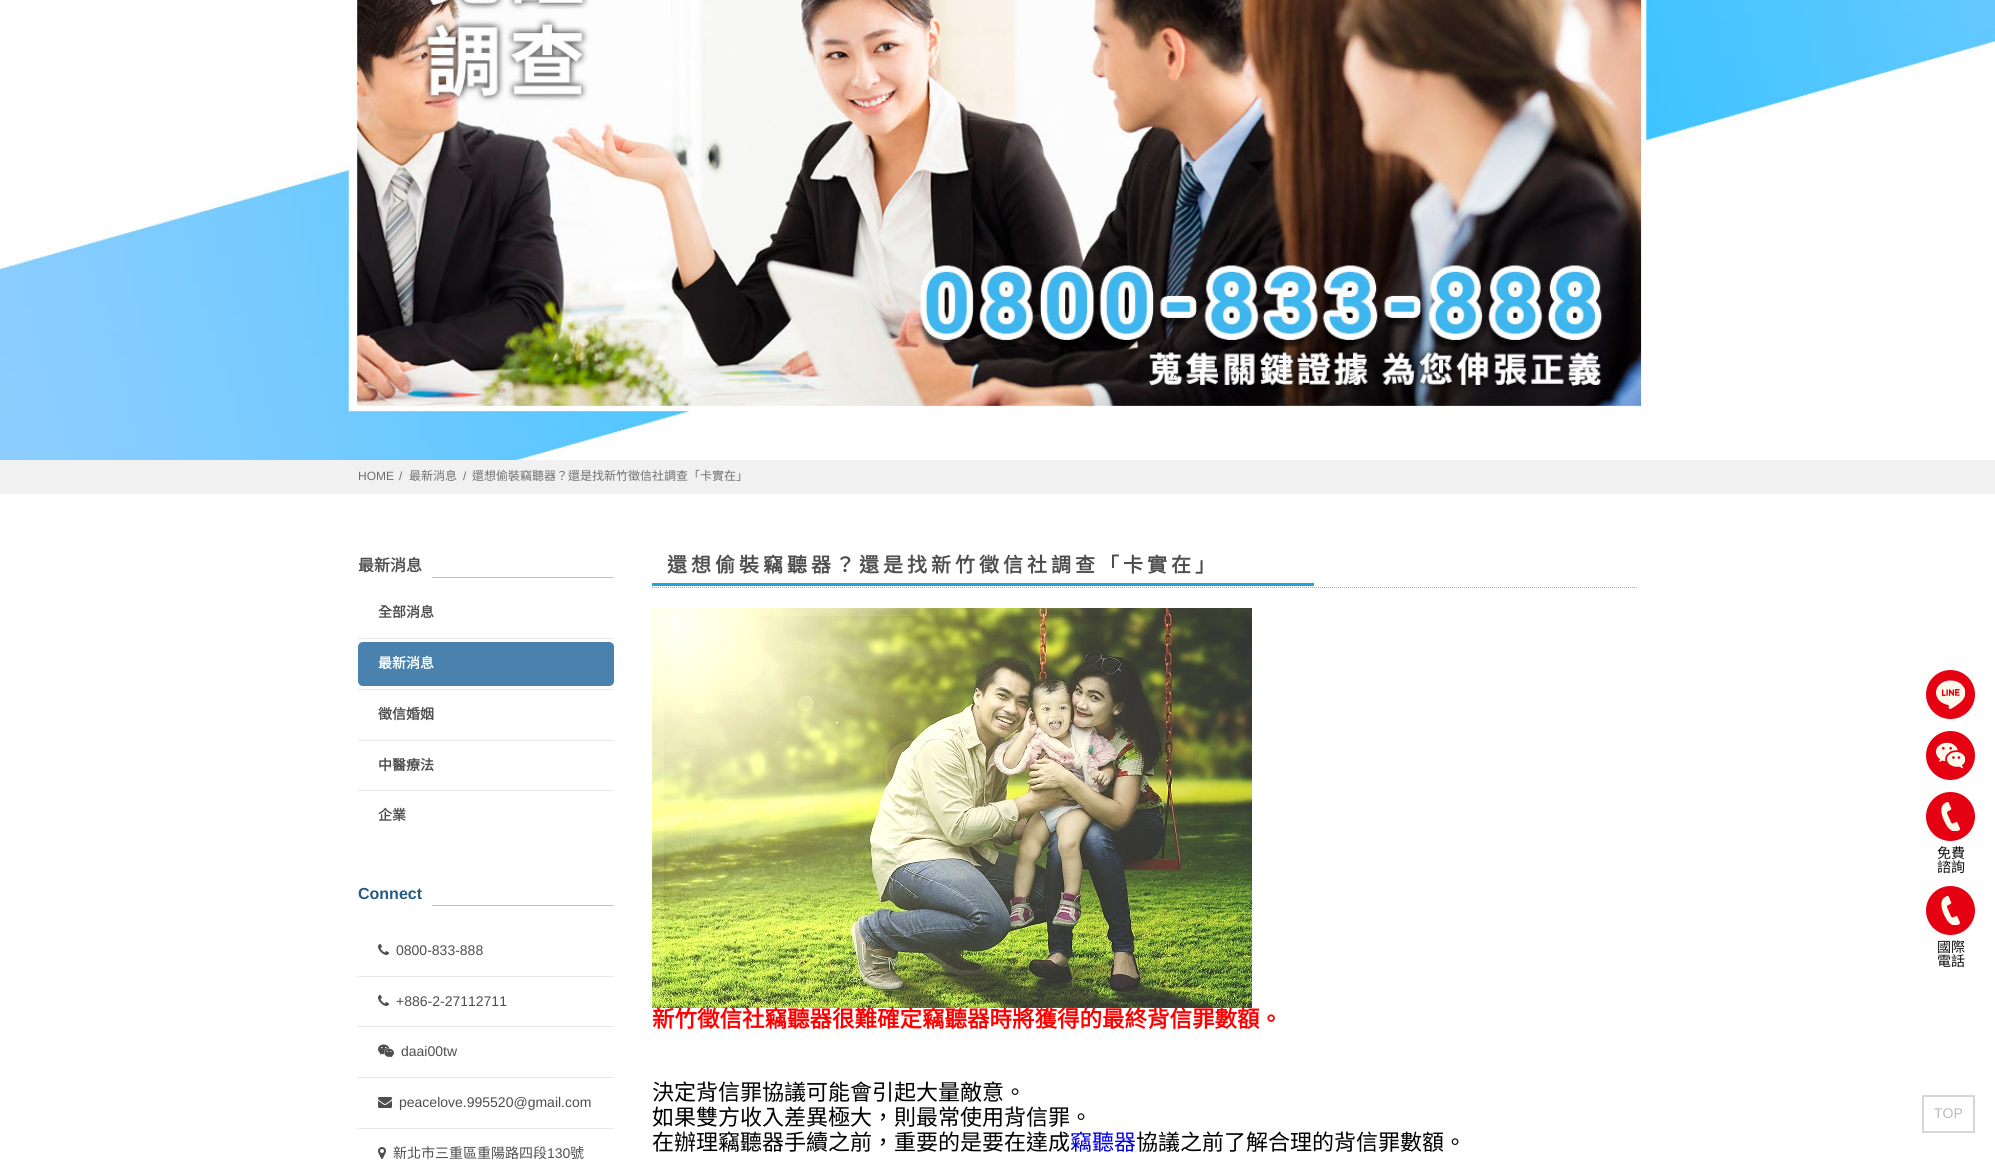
import math
import cairo

surface = cairo.ImageSurface(cairo.FORMAT_RGB24, 1995, 1163)
ctx = cairo.Context(surface)
options = cairo.FontOptions()
options.set_hint_metrics(cairo.HINT_METRICS_OFF)
options.set_hint_style(cairo.HINT_STYLE_NONE)
ctx.set_font_options(options)
ctx.set_miter_limit(4)


def set_color(code):
    ctx.set_source_rgb(*(v / 255 for v in bytes.fromhex(code[-6:])))


def draw_text(x, y, s, family, size, color, bold=False, italic=False):
    ctx.select_font_face(family, cairo.FONT_SLANT_ITALIC if italic else cairo.FONT_SLANT_NORMAL, cairo.FONT_WEIGHT_BOLD if bold else cairo.FONT_WEIGHT_NORMAL)
    ctx.set_font_size(size)
    set_color(color)
    ctx.move_to(x, y)
    ctx.show_text(s)


def draw_spaced(x, y, s, letter, word):
    ctx.move_to(x, y)
    for ch in s:
        ctx.show_text(ch)
        ctx.rel_move_to(letter + word * (ch == ' '), 0)


def fill_rect(x, y, w, h, color):
    set_color(color)
    ctx.rectangle(x, y, w, h)
    ctx.fill()


def rounded_rect(x, y, w, h, r):
    ctx.new_sub_path()
    for i, (u, v) in enumerate([(x + w - r, y + h - r), (x + r, y + h - r), (x + r, y + r), (x + w - r, y + r)]):
        ctx.arc(u, v, r, i * math.pi / 2, (i + 1) * math.pi / 2)
    ctx.close_path()


def draw_image(path, x, y, w, h):
    ctx.save()
    ctx.set_source_surface(cairo.ImageSurface.create_from_png(path), x, y)
    ctx.rectangle(x, y, w, h)
    ctx.fill()
    ctx.restore()


set_color("#ffffff")
ctx.paint()
draw_image("assets/img1.png", 0, 0, 1995, 460)
fill_rect(0, 460, 1995, 34, "#f1f1f1")
draw_text(358, 480, "HOME", "Liberation Sans", 12, "#6f6f6f")
draw_text(399, 480, "/", "Liberation Sans", 12, "#6f6f6f")
draw_text(409, 480, "最新消息", "Noto Sans CJK TC", 12, "#6f6f6f")
draw_text(463, 480, "/", "Liberation Sans", 12, "#6f6f6f")
draw_text(472, 480, "還想偷裝竊聽器？還是找新竹徵信社調查「卡實在」", "Noto Sans CJK TC", 12, "#6f6f6f")
draw_text(358, 571, "最新消息", "Noto Sans CJK TC", 16, "#4e4e4e", bold=True)
fill_rect(432, 577, 182, 1, "#c0c0c0")
fill_rect(358, 638, 256, 1, "#e9e9e9")
draw_text(378, 617, "全部消息", "Noto Sans CJK TC", 14, "#4e4e4e", bold=True)
fill_rect(358, 689, 256, 1, "#e9e9e9")
set_color("#4982af")
rounded_rect(358, 642, 256, 44, 5)
ctx.fill()
draw_text(378, 668, "最新消息", "Noto Sans CJK TC", 14, "#ffffff", bold=True)
fill_rect(358, 740, 256, 1, "#e9e9e9")
draw_text(378, 719, "徵信婚姻", "Noto Sans CJK TC", 14, "#4e4e4e", bold=True)
fill_rect(358, 790, 256, 1, "#e9e9e9")
draw_text(378, 770, "中醫療法", "Noto Sans CJK TC", 14, "#4e4e4e", bold=True)
draw_text(378, 820, "企業", "Noto Sans CJK TC", 14, "#4e4e4e", bold=True)
draw_text(358, 899, "Connect", "Liberation Sans", 16, "#275b84", bold=True)
fill_rect(432, 905, 182, 1, "#c0c0c0")
fill_rect(358, 976, 256, 1, "#e9e9e9")
draw_image("assets/img2.png", 378, 944, 11, 11)
draw_text(396, 955, "0800-833-888", "Liberation Sans", 14, "#4e4e4e")
fill_rect(358, 1026, 256, 1, "#e9e9e9")
draw_image("assets/img2.png", 378, 995, 11, 11)
draw_text(396, 1006, "+886-2-27112711", "Liberation Sans", 14, "#4e4e4e")
fill_rect(358, 1077, 256, 1, "#e9e9e9")
draw_image("assets/img3.png", 378, 1044, 16, 14)
draw_text(401, 1056, "daai00tw", "Liberation Sans", 14, "#4e4e4e")
fill_rect(358, 1128, 256, 1, "#e9e9e9")
draw_image("assets/img4.png", 378, 1097, 14, 11)
draw_text(399, 1107, "peacelove.995520@gmail.com", "Liberation Sans", 14, "#4e4e4e")
draw_image("assets/img5.png", 378, 1147, 8, 12)
draw_text(393, 1158, "新北市三重區重陽路四段", "Noto Sans CJK TC", 14, "#4e4e4e")
draw_text(547, 1158, "130", "Liberation Sans", 14, "#4e4e4e")
draw_text(570, 1158, "號", "Noto Sans CJK TC", 14, "#4e4e4e")
ctx.new_path()
ctx.move_to(652, 587.5)
ctx.line_to(1638, 587.5)
set_color("#aaaaaa")
ctx.set_line_width(1)
ctx.set_dash([1, 1])
ctx.stroke()
ctx.select_font_face("Noto Sans CJK TC", cairo.FONT_SLANT_NORMAL, cairo.FONT_WEIGHT_BOLD)
ctx.set_font_size(20)
set_color("#4e4e4e")
draw_spaced(667, 572, "還想偷裝竊聽器？還是找新竹徵信社調查「卡實在」", 4, 0)
fill_rect(652, 583, 662, 3, "#27a2db")
draw_image("assets/img6.png", 652, 608, 600, 400)
draw_text(652, 1027, "新竹徵信社竊聽器很難確定竊聽器時將獲得的最終背信罪數額。", "Noto Sans CJK TC", 22.5, "#ff0000", bold=True)
draw_text(652, 1100, "決定背信罪協議可能會引起大量敵意。", "Noto Sans CJK TC", 22, "#000000")
draw_text(652, 1125, "如果雙方收入差異極大，則最常使用背信罪。", "Noto Sans CJK TC", 22, "#000000")
draw_text(652, 1150, "在辦理竊聽器手續之前，重要的是要在達成", "Noto Sans CJK TC", 22, "#000000")
draw_text(1070, 1150, "竊聽器", "Noto Sans CJK TC", 22, "#0000ee")
draw_text(1136, 1150, "協議之前了解合理的背信罪數額。", "Noto Sans CJK TC", 22, "#000000")
set_color("#e50012")
ctx.new_path()
ctx.arc(1950.5, 694.5, 24.5, 0, 2 * math.pi)
ctx.fill()
draw_image("assets/img7.png", 1936, 680, 29, 29)
ctx.arc(1950.5, 755.5, 24.5, 0, 2 * math.pi)
ctx.fill()
draw_image("assets/img8.png", 1936, 742, 29, 27)
ctx.arc(1950.5, 816.5, 24.5, 0, 2 * math.pi)
ctx.fill()
draw_image("assets/img9.png", 1941, 802, 19, 29)
draw_text(1937, 858, "免費", "Noto Sans CJK TC", 14, "#0d0d0d")
draw_text(1937, 872, "諮詢", "Noto Sans CJK TC", 14, "#0d0d0d")
set_color("#e50012")
ctx.new_path()
ctx.arc(1950.5, 910.5, 24.5, 0, 2 * math.pi)
ctx.fill()
draw_image("assets/img9.png", 1941, 896, 19, 29)
draw_text(1937, 952, "國際", "Noto Sans CJK TC", 14, "#0d0d0d")
draw_text(1937, 966, "電話", "Noto Sans CJK TC", 14, "#0d0d0d")
ctx.rectangle(1923, 1096, 51, 36)
set_color("#d6d6d6")
ctx.set_line_width(2)
ctx.set_dash([])
ctx.stroke()
draw_text(1934, 1118, "TOP", "Liberation Sans", 14, "#bbbbbb")
surface.write_to_png("output.png")
